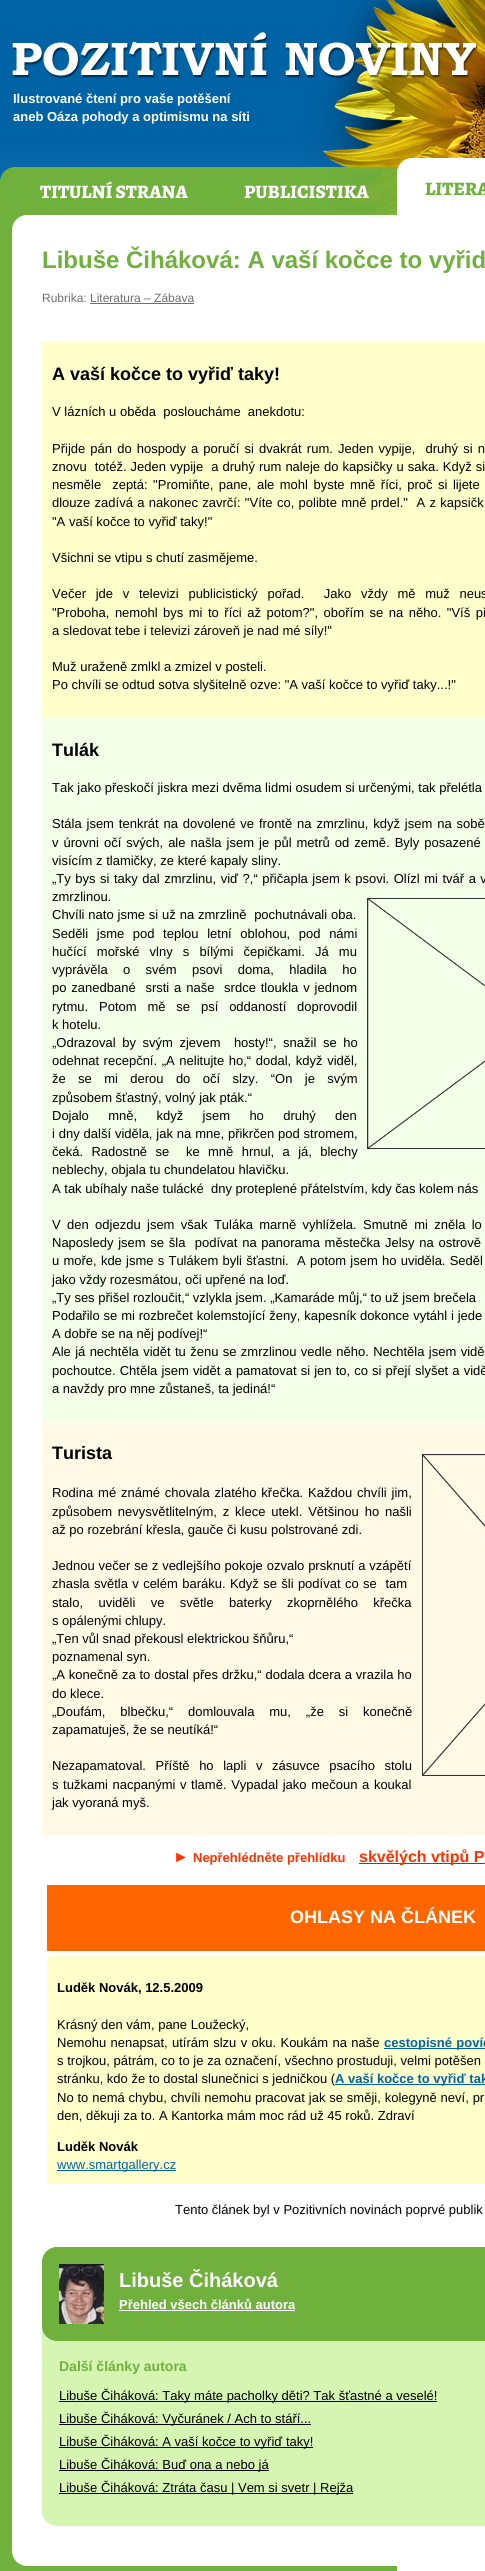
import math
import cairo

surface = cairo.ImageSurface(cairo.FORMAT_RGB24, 485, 2571)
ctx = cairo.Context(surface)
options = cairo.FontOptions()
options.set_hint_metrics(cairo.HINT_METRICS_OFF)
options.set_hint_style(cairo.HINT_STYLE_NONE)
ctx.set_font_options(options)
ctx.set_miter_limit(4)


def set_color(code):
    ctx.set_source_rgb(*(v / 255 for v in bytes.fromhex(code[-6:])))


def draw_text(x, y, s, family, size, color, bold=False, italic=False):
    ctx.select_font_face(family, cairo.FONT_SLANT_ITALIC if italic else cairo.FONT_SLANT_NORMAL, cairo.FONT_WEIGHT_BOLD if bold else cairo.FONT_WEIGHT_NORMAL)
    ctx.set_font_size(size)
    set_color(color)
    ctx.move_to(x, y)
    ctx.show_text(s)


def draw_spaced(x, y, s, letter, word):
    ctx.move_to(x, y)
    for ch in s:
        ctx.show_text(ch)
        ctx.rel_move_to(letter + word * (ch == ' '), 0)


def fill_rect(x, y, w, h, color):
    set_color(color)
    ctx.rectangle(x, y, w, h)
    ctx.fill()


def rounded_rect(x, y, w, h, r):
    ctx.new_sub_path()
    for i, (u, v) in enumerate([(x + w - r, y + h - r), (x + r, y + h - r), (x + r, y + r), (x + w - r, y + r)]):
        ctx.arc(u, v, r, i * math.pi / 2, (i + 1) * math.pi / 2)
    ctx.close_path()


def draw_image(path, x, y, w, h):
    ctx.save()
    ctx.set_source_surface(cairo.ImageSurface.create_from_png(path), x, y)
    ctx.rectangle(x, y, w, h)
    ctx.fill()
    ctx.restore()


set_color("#ffffff")
ctx.paint()
draw_image("assets/img1.png", 0, 0, 456, 182)
draw_image("assets/img2.png", 12, 0, 473, 167)
draw_text(13, 103, "Ilustrované čtení pro vaše potěšení", "Liberation Sans", 13, "#ffffff", bold=True)
draw_text(13, 121, "aneb Oáza pohody a optimismu na síti", "Liberation Sans", 13, "#ffffff", bold=True)
set_color("#70b03c")
rounded_rect(0, 167, 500, 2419, 15)
ctx.fill()
draw_image("assets/img3.png", 333, 167, 66, 48)
draw_text(40, 198, "TITULNÍ STRANA", "Alegreya ExtraBold", 19, "#ffffff")
draw_text(244, 198, "PUBLICISTIKA", "Alegreya ExtraBold", 19, "#ffffff")
rounded_rect(397, 158, 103, 91, 15)
ctx.fill()
draw_text(425, 195, "LITERA", "Alegreya ExtraBold", 19, "#70b03c")
set_color("#ffffff")
rounded_rect(12, 215, 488, 2351, 15)
ctx.fill()
draw_text(42, 268, "Libuše Čiháková: A vaší kočce to vyřiď", "Liberation Sans", 24, "#70b03c", bold=True)
draw_text(42, 302, "Rubrika: Literatura – Zábava", "Liberation Sans", 12, "#6e6e6e")
fill_rect(90, 303, 104, 1, "#6e6e6e")
fill_rect(42, 342, 443, 376, "#ffffcc")
draw_text(52, 380, "A vaší kočce to vyřiď taky!", "Liberation Sans", 18, "#000000", bold=True)
draw_text(52, 416, "V lázních u oběda  posloucháme  anekdotu:", "Liberation Sans", 13, "#000000")
draw_spaced(52, 453, "Přijde pán do hospody a poručí si dvakrát rum. Jeden vypije,  druhý si n", 0, 1.5)
draw_spaced(52, 471, "znovu  totéž. Jeden vypije  a druhý rum naleje do kapsičky u saka. Když si", 0, 0.4)
draw_spaced(52, 489, "nesměle  zeptá: \"Promiňte, pane, ale mohl byste mně říci, proč si lijete", 0, 1.9)
draw_spaced(52, 507, "dlouze zadívá a nakonec zavrčí: \"Víte co, polibte mně prdel.\"  A z kapsičk", 0, 0.7)
draw_text(52, 526, "\"A vaší kočce to vyřiď taky!\"", "Liberation Sans", 13, "#000000")
draw_text(52, 562, "Všichni se vtipu s chutí zasmějeme.", "Liberation Sans", 13, "#000000")
draw_spaced(52, 598, "Večer jde v televizi publicistický pořad.  Jako vždy mě muž neus", 0, 6.1)
draw_spaced(52, 617, "\"Proboha, nemohl bys mi to říci až potom?\", obořím se na něho. \"Víš př", 0, 1.9)
draw_text(52, 635, "a sledovat tebe i televizi zároveň je nad mé síly!\"", "Liberation Sans", 13, "#000000")
draw_text(52, 671, "Muž uraženě zmlkl a zmizel v posteli.", "Liberation Sans", 13, "#000000")
draw_text(52, 689, "Po chvíli se odtud sotva slyšitelně ozve: \"A vaší kočce to vyřiď taky...!\"", "Liberation Sans", 13, "#000000")
fill_rect(42, 718, 443, 703, "#f3ffe8")
draw_text(52, 756, "Tulák", "Liberation Sans", 18, "#000000", bold=True)
draw_text(52, 792, "Tak jako přeskočí jiskra mezi dvěma lidmi osudem si určenými, tak přelétla", "Liberation Sans", 13, "#000000")
draw_spaced(52, 828, "Stála jsem tenkrát na dovolené ve frontě na zmrzlinu, když jsem na sobě", 0, 1.25)
draw_spaced(52, 847, "v úrovni očí svých, ale našla jsem je půl metrů od země. Byly posazené", 0, 1.4)
draw_text(52, 865, "visícím z tlamičky, ze které kapaly sliny.", "Liberation Sans", 13, "#000000")
draw_spaced(52, 883, "„Ty bys si taky dal zmrzlinu, viď ?,“ přičapla jsem k psovi. Olízl mi tvář a v", 0, 0.9)
draw_text(52, 901, "zmrzlinou.", "Liberation Sans", 13, "#000000")
draw_spaced(52, 919, "Chvíli nato jsme si už na zmrzlině  pochutnávali oba.", 0, 0.25)
draw_image("assets/img4.png", 367, 898, 118, 251)
draw_spaced(52, 938, "Seděli jsme pod teplou letní oblohou, pod námi", 0, 5)
draw_spaced(52, 956, "hučící mořské vlny s bílými čepičkami. Já mu", 0, 6.5)
draw_spaced(52, 974, "vyprávěla o svém psovi doma, hladila ho", 0, 11.75)
draw_spaced(52, 992, "po zanedbané  srsti a naše  srdce tloukla v jednom", 0, 1.25)
draw_spaced(52, 1011, "rytmu. Potom mě se psí oddaností doprovodil", 0, 7.25)
draw_text(52, 1029, "k hotelu.", "Liberation Sans", 13, "#000000")
draw_spaced(52, 1047, "„Odrazoval by svým zjevem  hosty!“, snažil se ho", 0, 3)
draw_spaced(52, 1065, "odehnat recepční. „A nelitujte ho,“ dodal, když viděl,", 0, 1)
draw_spaced(52, 1083, "že se mi derou do očí slzy. “On je svým", 0, 8.75)
draw_text(52, 1102, "způsobem šťastný, volný jak pták.“", "Liberation Sans", 13, "#000000")
draw_spaced(52, 1120, "Dojalo mně, když jsem ho druhý den", 0, 15.75)
draw_spaced(52, 1138, "i dny další viděla, jak na mne, přikrčen pod stromem,", 0, 0.25)
draw_spaced(52, 1156, "čeká. Radostně se  ke mně hrnul, a já, blechy", 0, 4.75)
draw_text(52, 1174, "neblechy, objala tu chundelatou hlavičku.", "Liberation Sans", 13, "#000000")
draw_text(52, 1193, "A tak ubíhaly naše tulácké  dny proteplené přátelstvím, kdy čas kolem nás", "Liberation Sans", 13, "#000000")
draw_spaced(52, 1229, "V den odjezdu jsem však Tuláka marně vyhlížela. Smutně mi zněla lo", 0, 2.75)
draw_spaced(52, 1247, "Naposledy jsem se šla  podívat na panorama městečka Jelsy na ostrově", 0, 1.1)
draw_spaced(52, 1265, "u moře, kde jsme s Tulákem byli šťastni.  A potom jsem ho uviděla. Seděl", 0, 0.6)
draw_text(52, 1284, "jako vždy rozesmátou, oči upřené na loď.", "Liberation Sans", 13, "#000000")
draw_text(52, 1302, "„Ty ses přišel rozloučit,“ vzlykla jsem. „Kamaráde můj,“ to už jsem brečela", "Liberation Sans", 13, "#000000")
draw_spaced(52, 1320, "Podařilo se mi rozbrečet kolemstojící ženy, kapesník dokonce vytáhl i jede", 0, 0.25)
draw_text(52, 1338, "A dobře se na něj podívej!“", "Liberation Sans", 13, "#000000")
draw_spaced(52, 1356, "Ale já nechtěla vidět tu ženu se zmrzlinou vedle něho. Nechtěla jsem vidě", 0, 0.75)
draw_spaced(52, 1375, "pochoutce. Chtěla jsem vidět a pamatovat si jen to, co si přejí slyšet a vidě", 0, 0.5)
draw_text(52, 1393, "a navždy pro mne zůstaneš, ta jediná!“", "Liberation Sans", 13, "#000000")
fill_rect(42, 1421, 443, 414, "#fff9e6")
draw_text(52, 1459, "Turista", "Liberation Sans", 18, "#000000", bold=True)
draw_image("assets/img5.png", 422, 1454, 63, 322)
ctx.select_font_face("Liberation Sans")
ctx.set_font_size(13)
draw_spaced(52, 1497, "Rodina mé známé chovala zlatého křečka. Každou chvíli jim,", 0, 1.25)
draw_spaced(52, 1516, "způsobem nevysvětlitelným, z klece utekl. Většinou ho našli", 0, 2.25)
draw_text(52, 1534, "až po rozebrání křesla, gauče či kusu polstrované zdi.", "Liberation Sans", 13, "#000000")
draw_spaced(52, 1570, "Jednou večer se z vedlejšího pokoje ozvalo prsknutí a vzápětí", 0, 0.25)
draw_spaced(52, 1588, "zhasla světla v celém baráku. Když se šli podívat co se  tam", 0, 0.75)
draw_spaced(52, 1607, "stalo, uviděli ve světle baterky zkoprnělého křečka", 0, 11.75)
draw_text(52, 1625, "s opálenými chlupy.", "Liberation Sans", 13, "#000000")
draw_text(52, 1643, "„Ten vůl snad překousl elektrickou šňůru,“", "Liberation Sans", 13, "#000000")
draw_text(52, 1661, "poznamenal syn.", "Liberation Sans", 13, "#000000")
draw_spaced(52, 1679, "„A konečně za to dostal přes držku,“ dodala dcera a vrazila ho", 0, 0.25)
draw_text(52, 1698, "do klece.", "Liberation Sans", 13, "#000000")
draw_spaced(52, 1716, "„Doufám, blbečku,“ domlouvala mu, „že si konečně", 0, 11.25)
draw_text(52, 1734, "zapamatuješ, že se neutíká!“", "Liberation Sans", 13, "#000000")
draw_spaced(52, 1770, "Nezapamatoval. Příště ho lapli v zásuvce psacího stolu", 0, 6)
draw_spaced(52, 1789, "s tužkami nacpanými v tlamě. Vypadal jako mečoun a koukal", 0, 1)
draw_text(52, 1807, "jak vyoraná myš.", "Liberation Sans", 13, "#000000")
draw_text(173, 1862, "►", "Liberation Sans", 16, "#ff3300", bold=True)
draw_text(193, 1862, "Nepřehlédněte přehlídku", "Liberation Sans", 13, "#ff3300", bold=True)
fill_rect(359, 1863, 126, 1, "#0063a6")
draw_text(359, 1862, "skvělých vtipů P", "Liberation Sans", 16, "#ff3300", bold=True)
fill_rect(47, 1885, 438, 66, "#ff6600")
draw_text(290, 1923, "OHLASY NA ČLÁNEK", "Liberation Sans", 18, "#ffffff", bold=True)
fill_rect(47, 1956, 438, 228, "#ffffcc")
draw_text(57, 1992, "Luděk Novák, 12.5.2009", "Liberation Sans", 13, "#000000", bold=True)
draw_text(57, 2029, "Krásný den vám, pane Loužecký,", "Liberation Sans", 13, "#000000")
draw_spaced(57, 2047, "Nemohu nenapsat, utírám slzu v oku. Koukám na naše", 0, 0.75)
fill_rect(384, 2048, 101, 1, "#0063a6")
ctx.select_font_face("Liberation Sans", cairo.FONT_SLANT_NORMAL, cairo.FONT_WEIGHT_BOLD)
draw_spaced(384, 2047, "cestopisné povíd", 0, 0.75)
ctx.select_font_face("Liberation Sans")
set_color("#000000")
draw_spaced(57, 2065, "s trojkou, pátrám, co to je za označení, všechno prostuduji, velmi potěšen", 0, 0.1)
draw_text(57, 2083, "stránku, kdo že to dostal slunečnici s jedničkou (", "Liberation Sans", 13, "#000000")
fill_rect(335, 2084, 150, 1, "#0063a6")
draw_text(335, 2083, "A vaší kočce to vyřiď tak", "Liberation Sans", 13, "#0063a6", bold=True)
ctx.select_font_face("Liberation Sans")
set_color("#000000")
draw_spaced(57, 2102, "No to nemá chybu, chvíli nemohu pracovat jak se směji, kolegyně neví, pr", 0, 0.25)
draw_text(57, 2120, "den, děkuji za to. A Kantorka mám moc rád už 45 roků. Zdraví", "Liberation Sans", 13, "#000000")
draw_text(57, 2151, "Luděk Novák", "Liberation Sans", 13, "#000000", bold=True)
fill_rect(57, 2170, 119, 1, "#0063a6")
draw_text(57, 2169, "www.smartgallery.cz", "Liberation Sans", 13, "#0063a6")
draw_text(175, 2214, "Tento článek byl v Pozitivních novinách poprvé publik", "Liberation Sans", 13, "#000000")
set_color("#d6f5b3")
rounded_rect(42, 2247, 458, 279, 15)
ctx.fill()
set_color("#70b03c")
rounded_rect(42, 2247, 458, 94, 15)
ctx.fill()
draw_image("assets/img6.png", 59, 2264, 45, 60)
draw_text(119, 2287, "Libuše Čiháková", "Liberation Sans", 20, "#ffffff", bold=True)
draw_text(119, 2309, "Přehled všech článků autora", "Liberation Sans", 13, "#ffffff", bold=True)
fill_rect(119, 2310, 176, 1, "#ffffff")
draw_text(59, 2371, "Další články autora", "Liberation Sans", 14, "#70b03c", bold=True)
fill_rect(59, 2401, 378, 1, "#000000")
draw_text(59, 2400, "Libuše Čiháková: Taky máte pacholky děti? Tak šťastné a veselé!", "Liberation Sans", 13, "#000000")
fill_rect(59, 2424, 252, 1, "#000000")
draw_text(59, 2423, "Libuše Čiháková: Vyčuránek / Ach to stáří...", "Liberation Sans", 13, "#000000")
fill_rect(59, 2447, 254, 1, "#000000")
draw_text(59, 2446, "Libuše Čiháková: A vaší kočce to vyřiď taky!", "Liberation Sans", 13, "#000000")
fill_rect(59, 2470, 210, 1, "#000000")
draw_text(59, 2469, "Libuše Čiháková: Buď ona a nebo já", "Liberation Sans", 13, "#000000")
fill_rect(59, 2493, 294, 1, "#000000")
draw_text(59, 2492, "Libuše Čiháková: Ztráta času | Vem si svetr | Rejža", "Liberation Sans", 13, "#000000")
fill_rect(397, 2566, 88, 5, "#ffffff")
surface.write_to_png("output.png")
